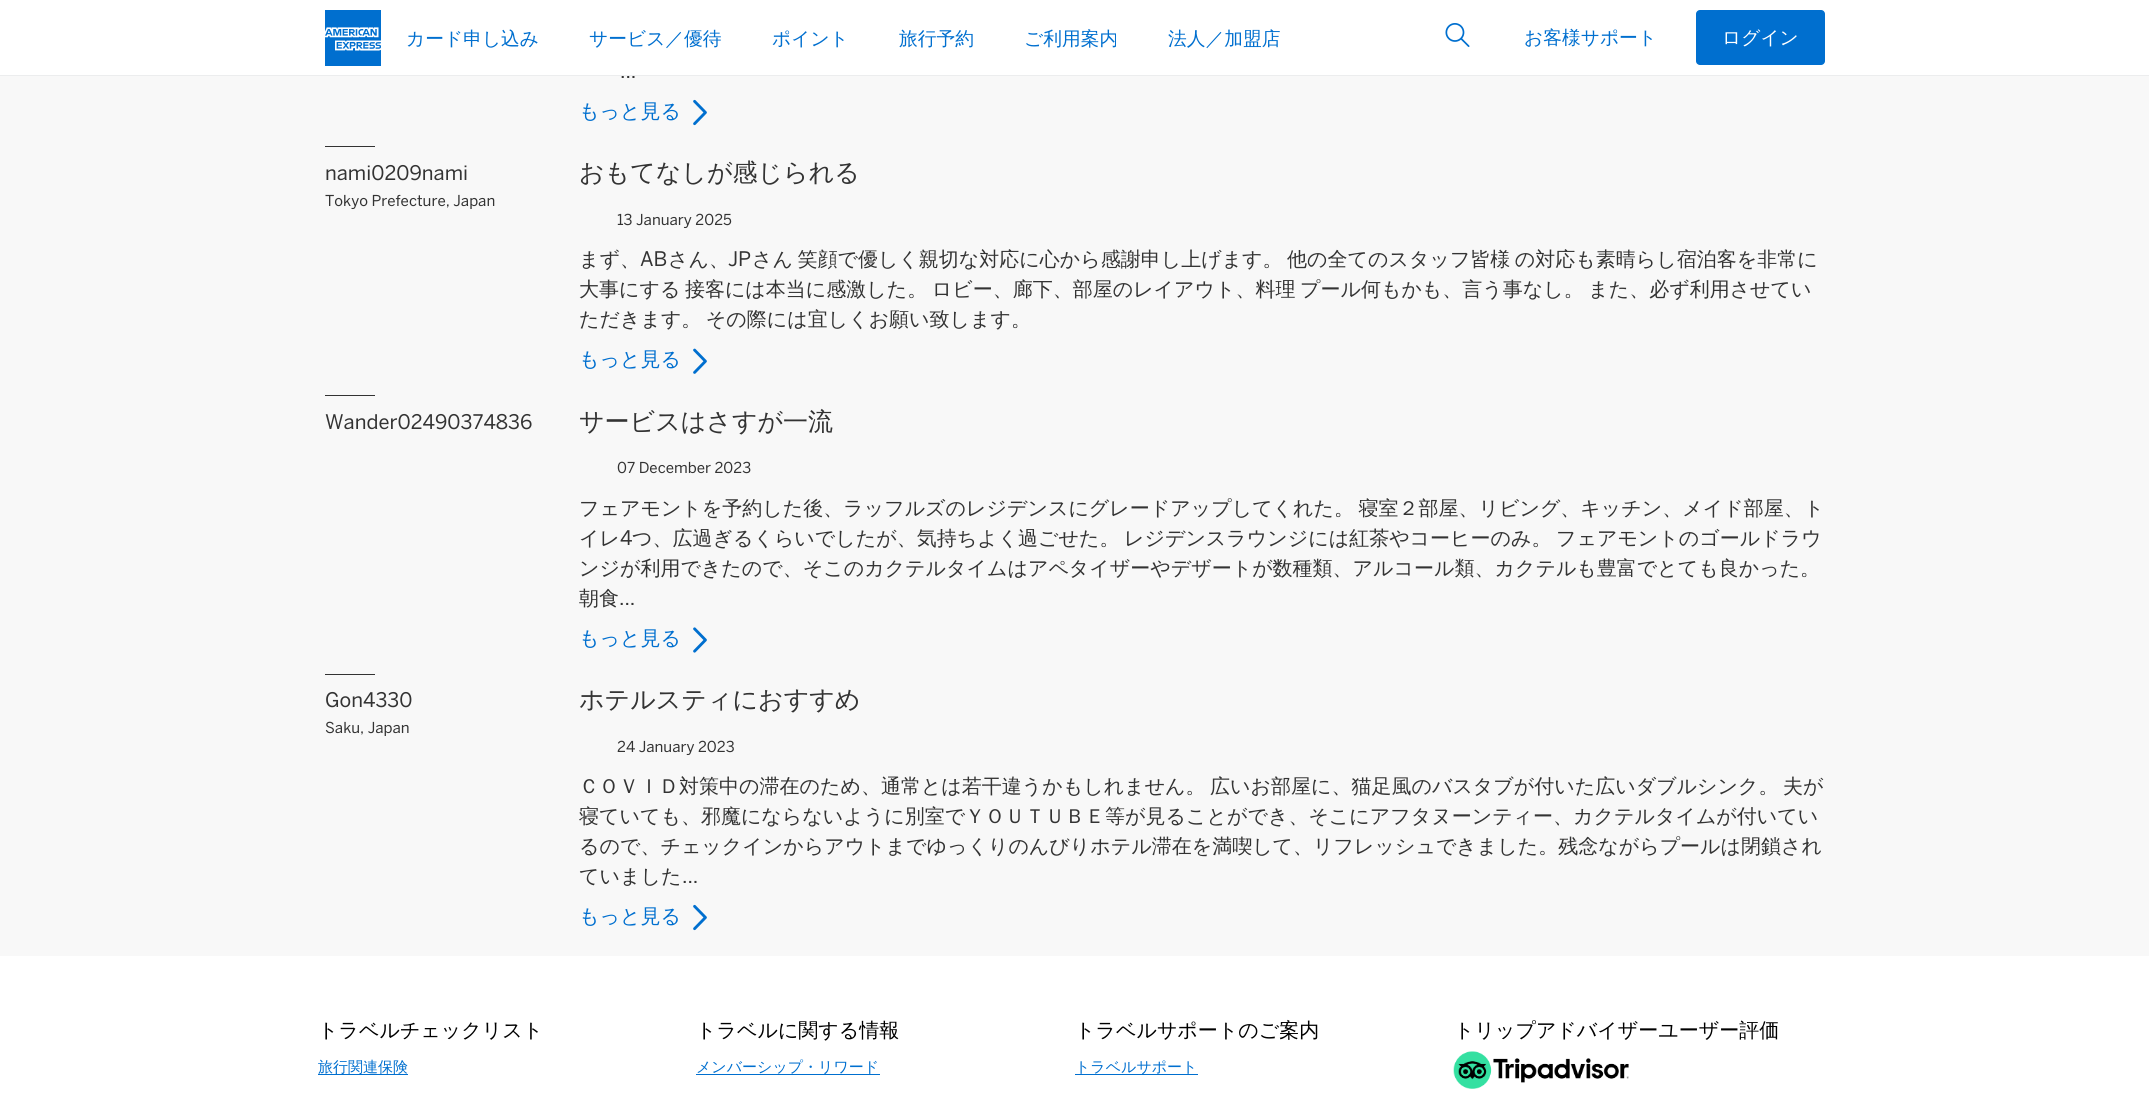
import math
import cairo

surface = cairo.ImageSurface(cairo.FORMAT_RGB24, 2149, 1093)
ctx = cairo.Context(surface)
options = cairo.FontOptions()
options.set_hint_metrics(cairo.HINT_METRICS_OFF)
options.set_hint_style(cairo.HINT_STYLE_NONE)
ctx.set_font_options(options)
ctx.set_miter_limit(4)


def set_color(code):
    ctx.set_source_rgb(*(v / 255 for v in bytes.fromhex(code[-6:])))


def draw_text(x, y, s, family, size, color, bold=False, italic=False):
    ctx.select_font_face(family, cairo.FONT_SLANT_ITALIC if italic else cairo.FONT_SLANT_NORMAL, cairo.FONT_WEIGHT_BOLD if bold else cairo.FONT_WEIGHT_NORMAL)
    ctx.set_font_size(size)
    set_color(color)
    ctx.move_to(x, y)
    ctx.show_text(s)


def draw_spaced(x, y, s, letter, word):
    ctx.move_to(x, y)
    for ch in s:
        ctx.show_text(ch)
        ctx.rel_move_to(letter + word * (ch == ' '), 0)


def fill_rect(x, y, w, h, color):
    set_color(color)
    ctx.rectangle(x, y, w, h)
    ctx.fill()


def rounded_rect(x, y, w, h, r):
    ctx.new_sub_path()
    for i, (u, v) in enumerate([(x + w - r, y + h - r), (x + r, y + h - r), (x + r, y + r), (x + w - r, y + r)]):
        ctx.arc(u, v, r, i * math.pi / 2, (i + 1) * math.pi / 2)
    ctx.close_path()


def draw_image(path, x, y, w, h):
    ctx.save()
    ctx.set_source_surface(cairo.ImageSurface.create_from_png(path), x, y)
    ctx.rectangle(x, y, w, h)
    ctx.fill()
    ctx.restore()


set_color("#ffffff")
ctx.paint()
fill_rect(0, 76, 2149, 880, "#f8f8f8")
draw_text(620, 78, "...", "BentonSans", 20, "#333333")
fill_rect(0, 75, 2149, 1, "#ecedee")
draw_image("assets/img1.png", 325, 10, 56, 56)
draw_text(406, 45, "カード申し込み", "WenQuanYi Zen Hei Medium", 18.75, "#006fcf")
draw_text(589, 45, "サービス／優待", "WenQuanYi Zen Hei Medium", 18.75, "#006fcf")
draw_text(772, 45, "ポイント", "WenQuanYi Zen Hei Medium", 18.75, "#006fcf")
draw_text(899, 45, "旅行予約", "WenQuanYi Zen Hei Medium", 18.75, "#006fcf")
draw_text(1024, 45, "ご利用案内", "WenQuanYi Zen Hei Medium", 18.75, "#006fcf")
draw_text(1168, 45, "法人／加盟店", "WenQuanYi Zen Hei Medium", 18.75, "#006fcf")
draw_image("assets/img2.png", 1445, 23, 25, 24)
draw_text(1524, 44, "お客様サポート", "WenQuanYi Zen Hei Medium", 18.75, "#006fcf")
rounded_rect(1696, 10, 129, 55, 4)
ctx.fill()
draw_text(1722, 44, "ログイン", "WenQuanYi Zen Hei Medium", 18.75, "#ffffff")
draw_text(579, 118, "もっと見る", "WenQuanYi Zen Hei Medium", 20, "#006fcf")
draw_image("assets/img3.png", 693, 99, 14, 27)
fill_rect(325, 146, 50, 1, "#333333")
draw_text(325, 180, "nami0209nami", "BentonSans", 20, "#333333")
draw_text(325, 206, "Tokyo Prefecture, Japan", "BentonSans", 15, "#333333")
draw_text(579, 181, "おもてなしが感じられる", "WenQuanYi Zen Hei Medium", 25, "#333333")
draw_text(617, 225, "13 January 2025", "BentonSans", 15, "#333333")
draw_text(579, 266, "まず、", "WenQuanYi Zen Hei Medium", 20, "#333333")
draw_text(640, 266, "AB", "BentonSans", 20, "#333333")
draw_text(668, 266, "さん、", "WenQuanYi Zen Hei Medium", 20, "#333333")
draw_text(728, 266, "JP", "BentonSans", 20, "#333333")
ctx.select_font_face("WenQuanYi Zen Hei Medium")
draw_spaced(752, 266, "さん 笑顔で優しく親切な対応に心から感謝申し上げます。 他の全てのスタッフ皆様 の対応も素晴らし宿泊客を非常に", 0, -1.5)
draw_spaced(579, 296, "大事にする 接客には本当に感激した。 ロビー、廊下、部屋のレイアウト、料理 プール何もかも、言う事なし。 また、必ず利用させてい", 0, -1.5)
draw_spaced(579, 326, "ただきます。 その際には宜しくお願い致します。", 0, -1.5)
draw_text(579, 366, "もっと見る", "WenQuanYi Zen Hei Medium", 20, "#006fcf")
draw_image("assets/img4.png", 693, 348, 14, 26)
fill_rect(325, 395, 50, 1, "#333333")
draw_text(325, 429, "Wander02490374836", "BentonSans", 20, "#333333")
draw_text(579, 430, "サービスはさすが一流", "WenQuanYi Zen Hei Medium", 25, "#333333")
draw_text(617, 473, "07 December 2023", "BentonSans", 15, "#333333")
ctx.select_font_face("WenQuanYi Zen Hei Medium")
ctx.set_font_size(20)
draw_spaced(579, 515, "フェアモントを予約した後、ラッフルズのレジデンスにグレードアップしてくれた。 寝室２部屋、リビング、キッチン、メイド部屋、ト", 0, -1.5)
draw_text(579, 545, "イレ", "WenQuanYi Zen Hei Medium", 20, "#333333")
draw_text(620, 545, "4", "BentonSans", 20, "#333333")
ctx.select_font_face("WenQuanYi Zen Hei Medium")
draw_spaced(632, 545, "つ、広過ぎるくらいでしたが、気持ちよく過ごせた。 レジデンスラウンジには紅茶やコーヒーのみ。 フェアモントのゴールドラウ", 0, -1.5)
draw_text(579, 575, "ンジが利用できたので、そこのカクテルタイムはアペタイザーやデザートが数種類、アルコール類、カクテルも豊富でとても良かった。", "WenQuanYi Zen Hei Medium", 20, "#333333")
draw_text(579, 605, "朝食", "WenQuanYi Zen Hei Medium", 20, "#333333")
draw_text(619, 605, "...", "BentonSans", 20, "#333333")
draw_text(579, 645, "もっと見る", "WenQuanYi Zen Hei Medium", 20, "#006fcf")
draw_image("assets/img5.png", 693, 627, 14, 26)
fill_rect(325, 674, 50, 1, "#333333")
draw_text(325, 707, "Gon4330", "BentonSans", 20, "#333333")
draw_text(325, 733, "Saku, Japan", "BentonSans", 15, "#333333")
draw_text(579, 708, "ホテルスティにおすすめ", "WenQuanYi Zen Hei Medium", 25, "#333333")
draw_text(617, 752, "24 January 2023", "BentonSans", 15, "#333333")
ctx.select_font_face("WenQuanYi Zen Hei Medium")
ctx.set_font_size(20)
draw_spaced(579, 793, "ＣＯＶＩＤ対策中の滞在のため、通常とは若干違うかもしれません。 広いお部屋に、猫足風のバスタブが付いた広いダブルシンク。 夫が", 0, -1.5)
draw_text(579, 823, "寝ていても、邪魔にならないように別室でＹＯＵＴＵＢＥ等が見ることができ、そこにアフタヌーンティー、カクテルタイムが付いてい", "WenQuanYi Zen Hei Medium", 20, "#333333")
draw_text(579, 853, "るので、チェックインからアウトまでゆっくりのんびりホテル滞在を満喫して、リフレッシュできました。残念ながらプールは閉鎖され", "WenQuanYi Zen Hei Medium", 20, "#333333")
draw_text(579, 883, "ていました", "WenQuanYi Zen Hei Medium", 20, "#333333")
draw_text(682, 883, "...", "BentonSans", 20, "#333333")
draw_text(579, 923, "もっと見る", "WenQuanYi Zen Hei Medium", 20, "#006fcf")
draw_image("assets/img3.png", 693, 904, 14, 27)
draw_text(318, 1037, "トラベルチェックリスト", "WenQuanYi Zen Hei Medium", 20, "#000000")
draw_text(318, 1072, "旅行関連保険", "WenQuanYi Zen Hei Medium", 15, "#006fcf")
fill_rect(318, 1074, 90, 1, "#006fcf")
draw_text(696, 1037, "トラベルに関する情報", "WenQuanYi Zen Hei Medium", 20, "#000000")
fill_rect(696, 1074, 184, 1, "#006fcf")
draw_text(696, 1072, "メンバーシップ・リワード", "WenQuanYi Zen Hei Medium", 15, "#006fcf")
draw_text(1075, 1037, "トラベルサポートのご案内", "WenQuanYi Zen Hei Medium", 20, "#000000")
fill_rect(1075, 1074, 123, 1, "#006fcf")
draw_text(1075, 1072, "トラベルサポート", "WenQuanYi Zen Hei Medium", 15, "#006fcf")
draw_text(1454, 1037, "トリップアドバイザーユーザー評価", "WenQuanYi Zen Hei Medium", 20, "#000000")
draw_image("assets/img6.png", 1453, 1051, 176, 38)
surface.write_to_png("output.png")
